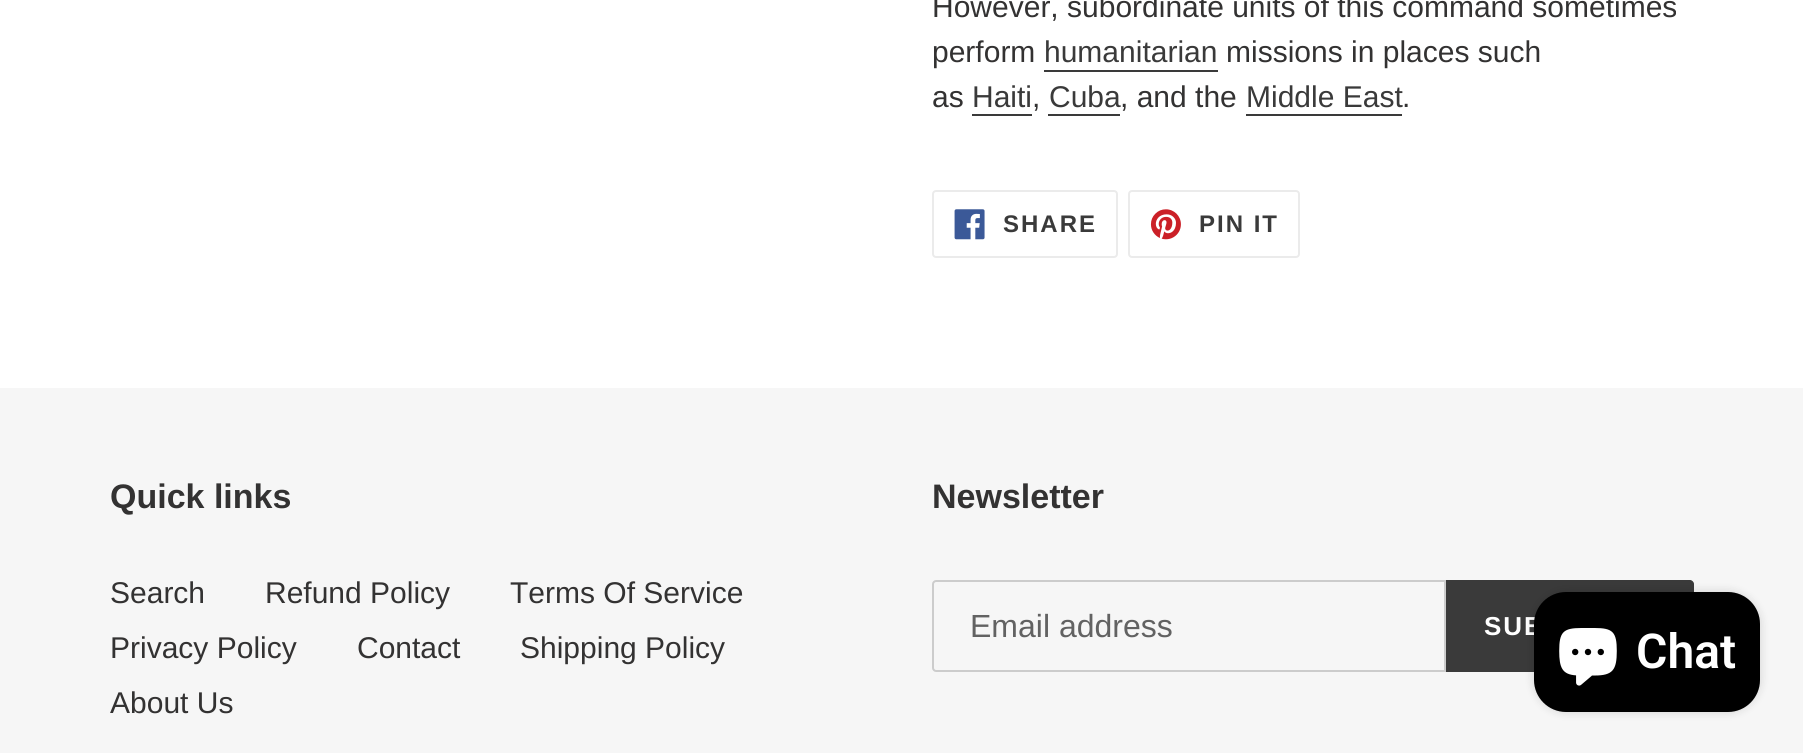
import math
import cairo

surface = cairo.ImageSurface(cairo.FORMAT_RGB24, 1803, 753)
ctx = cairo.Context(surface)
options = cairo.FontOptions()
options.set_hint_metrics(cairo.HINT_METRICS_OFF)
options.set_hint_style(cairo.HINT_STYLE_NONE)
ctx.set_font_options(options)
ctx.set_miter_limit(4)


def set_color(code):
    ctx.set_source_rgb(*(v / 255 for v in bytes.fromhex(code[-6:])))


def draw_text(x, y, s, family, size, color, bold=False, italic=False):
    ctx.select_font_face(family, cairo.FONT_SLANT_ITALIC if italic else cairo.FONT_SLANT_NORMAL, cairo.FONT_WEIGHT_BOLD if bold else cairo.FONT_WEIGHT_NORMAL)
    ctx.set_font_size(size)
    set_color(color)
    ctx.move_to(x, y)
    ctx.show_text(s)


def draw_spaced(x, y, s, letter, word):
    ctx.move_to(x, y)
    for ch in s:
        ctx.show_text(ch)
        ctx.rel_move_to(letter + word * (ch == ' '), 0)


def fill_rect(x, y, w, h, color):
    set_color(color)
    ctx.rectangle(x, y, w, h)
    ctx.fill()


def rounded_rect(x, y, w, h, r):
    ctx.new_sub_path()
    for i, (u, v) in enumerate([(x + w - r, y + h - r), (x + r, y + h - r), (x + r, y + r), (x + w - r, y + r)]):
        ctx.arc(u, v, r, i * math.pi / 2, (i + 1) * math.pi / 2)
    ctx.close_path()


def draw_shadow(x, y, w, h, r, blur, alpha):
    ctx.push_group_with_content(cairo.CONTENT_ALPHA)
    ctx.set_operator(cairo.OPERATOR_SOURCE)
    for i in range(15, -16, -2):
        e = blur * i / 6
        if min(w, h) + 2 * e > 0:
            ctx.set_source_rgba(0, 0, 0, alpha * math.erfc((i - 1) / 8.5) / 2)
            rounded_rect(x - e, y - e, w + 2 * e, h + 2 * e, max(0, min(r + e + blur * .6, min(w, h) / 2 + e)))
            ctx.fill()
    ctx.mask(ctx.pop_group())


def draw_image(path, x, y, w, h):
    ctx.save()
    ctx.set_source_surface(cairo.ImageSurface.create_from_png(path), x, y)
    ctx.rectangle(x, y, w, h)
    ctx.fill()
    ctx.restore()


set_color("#ffffff")
ctx.paint()
draw_text(932, 17, "However, subordinate units of this command sometimes", "Liberation Sans", 30, "#333232")
draw_text(932, 62, "perform", "Liberation Sans", 30, "#333232")
draw_text(1044, 62, "humanitarian", "Liberation Sans", 30, "#3a3a3a")
fill_rect(1044, 70, 174, 2, "#3a3a3a")
draw_text(1226, 62, "missions in places such", "Liberation Sans", 30, "#333232")
draw_text(932, 107, "as", "Liberation Sans", 30, "#333232")
draw_text(972, 107, "Haiti", "Liberation Sans", 30, "#3a3a3a")
fill_rect(972, 114, 60, 2, "#3a3a3a")
draw_text(1032, 107, ",", "Liberation Sans", 30, "#333232")
draw_text(1049, 107, "Cuba", "Liberation Sans", 30, "#3a3a3a")
fill_rect(1048, 114, 72, 2, "#3a3a3a")
draw_text(1120, 107, ", and the", "Liberation Sans", 30, "#333232")
draw_text(1246, 107, "Middle East", "Liberation Sans", 30, "#3a3a3a")
fill_rect(1246, 114, 156, 2, "#3a3a3a")
draw_text(1402, 107, ".", "Liberation Sans", 30, "#333232")
rounded_rect(933, 191, 184, 66, 3)
set_color("#ebebeb")
ctx.stroke()
draw_image("assets/img1.png", 954, 209, 31, 31)
ctx.select_font_face("Liberation Sans", cairo.FONT_SLANT_NORMAL, cairo.FONT_WEIGHT_BOLD)
ctx.set_font_size(24)
set_color("#3a3a3a")
draw_spaced(1003, 232, "SHARE", 2, 0)
rounded_rect(1129, 191, 170, 66, 3)
set_color("#ebebeb")
ctx.stroke()
draw_image("assets/img2.png", 1150, 209, 31, 31)
set_color("#3a3a3a")
draw_spaced(1199, 232, "PIN IT", 2, 0)
fill_rect(0, 388, 1803, 365, "#f6f6f6")
draw_text(110, 508, "Quick links", "Liberation Sans", 34, "#333232", bold=True)
draw_text(110, 603, "Search", "Liberation Sans", 30, "#333232")
draw_text(265, 603, "Refund Policy", "Liberation Sans", 30, "#333232")
draw_text(510, 603, "Terms Of Service", "Liberation Sans", 30, "#333232")
draw_text(110, 658, "Privacy Policy", "Liberation Sans", 30, "#333232")
draw_text(357, 658, "Contact", "Liberation Sans", 30, "#333232")
draw_text(520, 658, "Shipping Policy", "Liberation Sans", 30, "#333232")
draw_text(110, 713, "About Us", "Liberation Sans", 30, "#333232")
draw_text(932, 508, "Newsletter", "Liberation Sans", 34, "#333232", bold=True)
ctx.new_path()
ctx.move_to(936, 581)
ctx.line_to(1445, 581)
ctx.line_to(1445, 671)
ctx.line_to(936, 671)
ctx.curve_to(934.5, 671, 933, 669.5, 933, 668)
ctx.line_to(933, 584)
ctx.curve_to(933, 582.5, 934.5, 581, 936, 581)
ctx.close_path()
set_color("#cccccc")
ctx.stroke()
draw_text(970, 637, "Email address", "Liberation Sans", 32, "#626262")
set_color("#3a3a3a")
ctx.new_path()
ctx.move_to(1446, 580)
ctx.line_to(1690, 580)
ctx.curve_to(1692, 580, 1694, 582, 1694, 584)
ctx.line_to(1694, 668)
ctx.curve_to(1694, 670, 1692, 672, 1690, 672)
ctx.line_to(1446, 672)
ctx.close_path()
ctx.fill()
ctx.select_font_face("Liberation Sans", cairo.FONT_SLANT_NORMAL, cairo.FONT_WEIGHT_BOLD)
ctx.set_font_size(26)
set_color("#ffffff")
draw_spaced(1484, 635, "SUB", 2, 0)
set_color("#000000")
draw_shadow(1534, 592, 226, 120, 32, 5, 0.15)
set_color("#000000")
rounded_rect(1534, 592, 226, 120, 32)
ctx.fill()
draw_image("assets/img3.png", 1559, 628, 58, 58)
draw_text(1636, 668, "Chat", "Roboto SemiBold", 48, "#ffffff")
surface.write_to_png("output.png")
